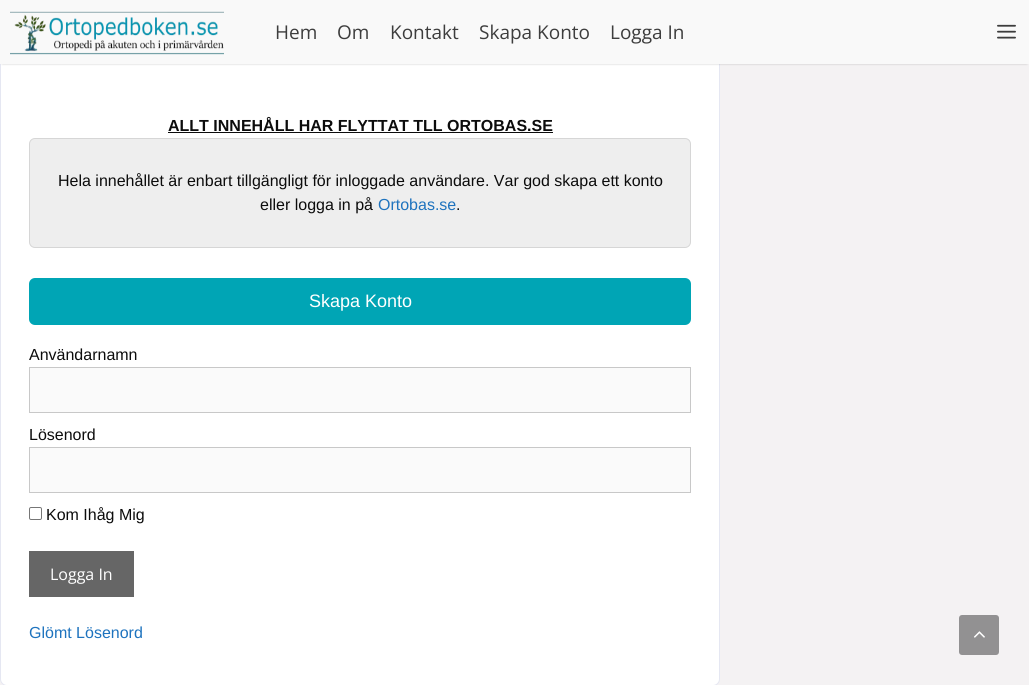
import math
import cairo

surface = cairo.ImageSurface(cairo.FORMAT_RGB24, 1029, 685)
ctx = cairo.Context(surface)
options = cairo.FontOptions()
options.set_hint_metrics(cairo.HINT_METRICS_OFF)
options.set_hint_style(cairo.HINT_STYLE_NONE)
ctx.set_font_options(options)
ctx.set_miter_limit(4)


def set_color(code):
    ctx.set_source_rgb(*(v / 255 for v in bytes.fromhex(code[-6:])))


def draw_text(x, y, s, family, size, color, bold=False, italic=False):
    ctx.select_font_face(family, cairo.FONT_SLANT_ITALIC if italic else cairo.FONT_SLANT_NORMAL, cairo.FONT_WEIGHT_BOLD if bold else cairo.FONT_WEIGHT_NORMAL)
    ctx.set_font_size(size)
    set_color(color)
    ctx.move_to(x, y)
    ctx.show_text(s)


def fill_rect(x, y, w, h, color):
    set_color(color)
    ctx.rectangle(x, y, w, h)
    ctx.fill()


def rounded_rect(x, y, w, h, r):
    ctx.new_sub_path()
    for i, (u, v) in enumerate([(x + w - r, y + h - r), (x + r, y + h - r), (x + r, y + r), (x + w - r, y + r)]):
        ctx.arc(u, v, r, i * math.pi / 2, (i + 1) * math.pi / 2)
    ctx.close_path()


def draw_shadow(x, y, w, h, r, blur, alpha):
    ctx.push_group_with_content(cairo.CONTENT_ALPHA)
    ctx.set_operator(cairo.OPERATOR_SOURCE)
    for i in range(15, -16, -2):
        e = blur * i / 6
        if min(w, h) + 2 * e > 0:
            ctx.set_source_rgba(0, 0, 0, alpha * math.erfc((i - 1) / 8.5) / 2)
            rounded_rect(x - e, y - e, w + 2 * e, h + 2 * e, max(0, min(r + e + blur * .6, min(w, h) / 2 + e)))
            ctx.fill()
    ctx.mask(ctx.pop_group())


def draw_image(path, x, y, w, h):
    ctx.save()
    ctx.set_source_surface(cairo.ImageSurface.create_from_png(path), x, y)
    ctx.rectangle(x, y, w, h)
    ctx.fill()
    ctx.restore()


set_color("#f4f2f3")
ctx.paint()
set_color("#ffffff")
rounded_rect(0.5, -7.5, 719, 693, 6.5)
ctx.fill_preserve()
set_color("#e5e7f2")
ctx.set_line_width(1)
ctx.stroke()
set_color("#000000")
draw_shadow(2, 4, 1025, 60, 0, 1, 0.2)
fill_rect(0, 0, 1029, 64, "#f9f9f9")
draw_image("assets/img1.png", 10, 11, 214, 44)
draw_text(275, 39, "Hem", "Open Sans", 19, "#3d3d3d")
draw_text(337, 39, "Om", "Open Sans", 19, "#3d3d3d")
draw_text(390, 39, "Kontakt", "Open Sans", 19, "#3d3d3d")
draw_text(479, 39, "Skapa Konto", "Open Sans", 19, "#3d3d3d")
draw_text(610, 39, "Logga In", "Open Sans", 19, "#3d3d3d")
draw_image("assets/img2.png", 997, 24, 19, 15)
draw_text(168, 131, "ALLT INNEHÅLL HAR FLYTTAT TLL ORTOBAS.SE", "Liberation Sans", 16, "#0c0c0c", bold=True)
fill_rect(168, 132, 385, 1, "#0c0c0c")
set_color("#eeeeee")
rounded_rect(29.5, 138.5, 661, 109, 5.5)
ctx.fill_preserve()
set_color("#d6d6d6")
ctx.stroke()
draw_text(58, 186, "Hela innehållet är enbart tillgängligt för inloggade användare. Var god skapa ett konto", "Liberation Sans", 16, "#0c0c0c")
draw_text(260, 210, "eller logga in på", "Liberation Sans", 16, "#0c0c0c")
draw_text(378, 210, "Ortobas.se", "Liberation Sans", 16, "#1e73be")
draw_text(456, 210, ".", "Liberation Sans", 16, "#0c0c0c")
set_color("#00a5b5")
rounded_rect(29, 278, 662, 47, 6)
ctx.fill()
draw_text(309, 307, "Skapa Konto", "Liberation Sans", 18, "#ffffff")
draw_text(29, 360, "Användarnamn", "Liberation Sans", 16, "#0c0c0c")
set_color("#fafafa")
ctx.rectangle(29.5, 367.5, 661, 45)
ctx.fill_preserve()
set_color("#c8c8c8")
ctx.stroke()
draw_text(29, 440, "Lösenord", "Liberation Sans", 16, "#0c0c0c")
set_color("#fafafa")
ctx.rectangle(29.5, 447.5, 661, 45)
ctx.fill_preserve()
set_color("#c8c8c8")
ctx.stroke()
rounded_rect(29.5, 507.5, 12, 12, 1.5)
set_color("#767676")
ctx.stroke()
draw_text(46, 520, "Kom Ihåg Mig", "Liberation Sans", 16, "#0c0c0c")
fill_rect(29, 551, 105, 46, "#666666")
draw_text(50, 580, "Logga In", "Open Sans", 16, "#ffffff")
draw_text(29, 638, "Glömt Lösenord", "Liberation Sans", 16, "#1e73be")
set_color("#929192")
rounded_rect(959, 615, 40, 40, 3)
ctx.fill()
draw_image("assets/img3.png", 974, 631, 11, 7)
surface.write_to_png("output.png")
